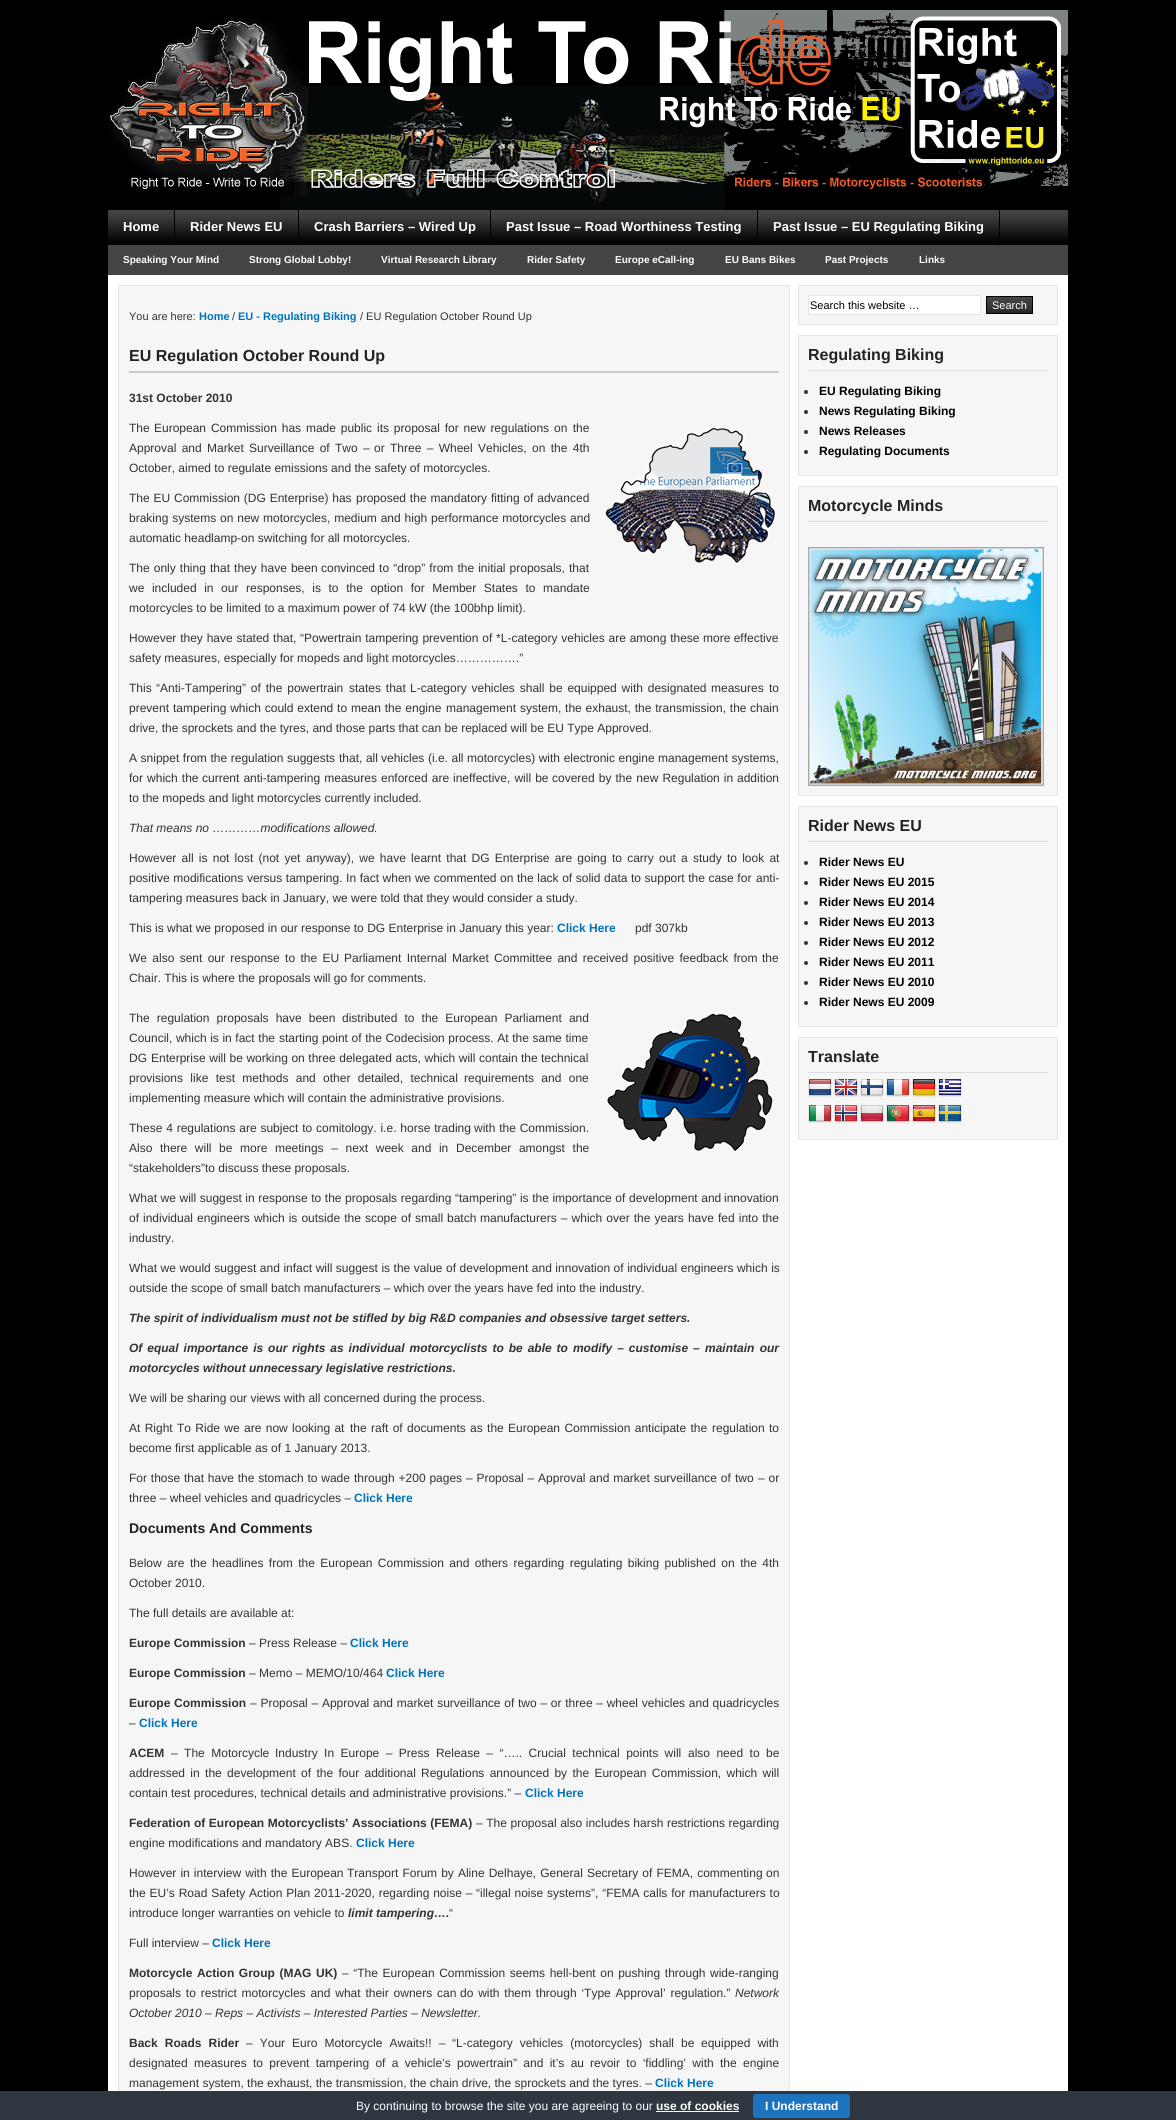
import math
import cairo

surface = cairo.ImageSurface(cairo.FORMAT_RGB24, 1176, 2120)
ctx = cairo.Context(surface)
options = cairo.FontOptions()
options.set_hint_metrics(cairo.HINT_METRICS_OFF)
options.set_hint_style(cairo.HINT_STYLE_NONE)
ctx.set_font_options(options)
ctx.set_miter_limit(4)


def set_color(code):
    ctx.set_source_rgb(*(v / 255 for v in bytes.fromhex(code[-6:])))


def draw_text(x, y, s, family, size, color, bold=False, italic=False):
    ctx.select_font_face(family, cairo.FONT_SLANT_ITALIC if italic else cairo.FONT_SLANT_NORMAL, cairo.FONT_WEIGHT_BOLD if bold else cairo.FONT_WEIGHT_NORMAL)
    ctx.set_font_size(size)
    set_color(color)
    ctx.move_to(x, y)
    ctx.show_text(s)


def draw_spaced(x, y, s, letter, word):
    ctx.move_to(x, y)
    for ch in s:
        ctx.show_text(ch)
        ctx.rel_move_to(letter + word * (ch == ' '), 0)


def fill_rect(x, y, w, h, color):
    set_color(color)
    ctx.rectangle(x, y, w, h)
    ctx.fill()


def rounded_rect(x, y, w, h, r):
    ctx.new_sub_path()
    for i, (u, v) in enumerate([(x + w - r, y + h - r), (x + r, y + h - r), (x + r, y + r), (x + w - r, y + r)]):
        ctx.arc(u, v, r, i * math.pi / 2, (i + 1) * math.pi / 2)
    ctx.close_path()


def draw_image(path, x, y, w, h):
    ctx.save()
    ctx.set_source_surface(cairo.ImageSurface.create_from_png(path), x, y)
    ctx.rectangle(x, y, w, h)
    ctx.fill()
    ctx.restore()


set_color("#000000")
ctx.paint()
fill_rect(108, 275, 960, 1816, "#ffffff")
draw_image("assets/img1.png", 108, 10, 960, 200)
draw_image("assets/img2.png", 108, 210, 960, 35)
fill_rect(174, 210, 1, 35, "#000000")
draw_text(123, 231, "Home", "Liberation Sans", 13, "#ffffff", bold=True)
fill_rect(298, 210, 1, 35, "#000000")
draw_text(190, 231, "Rider News EU", "Liberation Sans", 13, "#ffffff", bold=True)
fill_rect(490, 210, 1, 35, "#000000")
draw_text(314, 231, "Crash Barriers – Wired Up", "Liberation Sans", 13, "#ffffff", bold=True)
fill_rect(757, 210, 1, 35, "#000000")
draw_text(506, 231, "Past Issue – Road Worthiness Testing", "Liberation Sans", 13, "#ffffff", bold=True)
fill_rect(999, 210, 1, 35, "#000000")
draw_text(773, 231, "Past Issue – EU Regulating Biking", "Liberation Sans", 13, "#ffffff", bold=True)
fill_rect(108, 245, 960, 30, "#444444")
draw_text(123, 263, "Speaking Your Mind", "Liberation Sans", 10, "#ffffff", bold=True)
draw_text(249, 263, "Strong Global Lobby!", "Liberation Sans", 10, "#ffffff", bold=True)
draw_text(381, 263, "Virtual Research Library", "Liberation Sans", 10, "#ffffff", bold=True)
draw_text(527, 263, "Rider Safety", "Liberation Sans", 10, "#ffffff", bold=True)
draw_text(615, 263, "Europe eCall-ing", "Liberation Sans", 10, "#ffffff", bold=True)
draw_text(725, 263, "EU Bans Bikes", "Liberation Sans", 10, "#ffffff", bold=True)
draw_text(825, 263, "Past Projects", "Liberation Sans", 10, "#ffffff", bold=True)
draw_text(919, 263, "Links", "Liberation Sans", 10, "#ffffff", bold=True)
fill_rect(119, 286, 670, 1805, "#f6f6f6")
ctx.rectangle(118.5, 285.5, 671, 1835)
set_color("#e6e6e6")
ctx.set_line_width(1)
ctx.stroke()
draw_text(129, 320, "You are here:", "Liberation Sans", 11, "#333333")
draw_text(199, 320, "Home", "Liberation Sans", 11, "#0073ba", bold=True)
draw_text(232, 320, "/", "Liberation Sans", 11, "#333333")
draw_text(238, 320, "EU - Regulating Biking", "Liberation Sans", 11, "#0073ba", bold=True)
draw_text(360, 320, "/ EU Regulation October Round Up", "Liberation Sans", 11, "#333333")
fill_rect(129, 371, 650, 2, "#cccccc")
draw_text(129, 361, "EU Regulation October Round Up", "Liberation Sans", 16, "#222222", bold=True)
draw_text(129, 402, "31st October 2010", "Liberation Sans", 12, "#333333", bold=True)
draw_text(129, 432, "The", "Liberation Sans", 12, "#333333")
draw_spaced(154, 432, "European Commission has made public", 0, 1.5)
draw_spaced(377, 432, "its proposal for new regulations", 0, 1.5)
draw_spaced(554, 432, "on the", 0, 2)
draw_image("assets/img3.png", 604, 427, 172, 137)
draw_spaced(129, 452, "Approval and Market", 0, 2)
draw_spaced(249, 452, "Surveillance of Two –", 0, 2)
draw_spaced(374, 452, "or Three – Wheel", 0, 2)
draw_spaced(478, 452, "Vehicles, on the 4th", 0, 2)
draw_text(129, 472, "October, aimed to regulate emissions and the safety of motorcycles.", "Liberation Sans", 12, "#333333")
draw_spaced(129, 502, "The EU Commission (DG Enterprise) has", 0, 0.5)
draw_spaced(356, 502, "proposed the mandatory fitting of advanced", 0, 0.5)
draw_spaced(129, 522, "braking systems on new", 0, 0.5)
draw_spaced(263, 522, "motorcycles, medium and high performance motorcycles and", 0, 0.5)
draw_text(129, 542, "automatic headlamp-on switching for all motorcycles.", "Liberation Sans", 12, "#333333")
draw_spaced(129, 572, "The only thing that they have been", 0, 0.75)
draw_spaced(321, 572, "convinced to “drop” from the initial proposals, that", 0, 0.75)
draw_spaced(129, 592, "we included in our", 0, 4.25)
draw_spaced(246, 592, "responses, is to the option for Member States to mandate", 0, 4.25)
draw_text(129, 612, "motorcycles to be limited to a maximum power of 74 kW (the 100bhp limit).", "Liberation Sans", 12, "#333333")
draw_spaced(129, 642, "However they have stated that,", 0, 0.5)
draw_spaced(300, 642, "“Powertrain tampering prevention of *L-category vehicles are among these", 0, 0.5)
draw_text(703, 642, "more effective", "Liberation Sans", 12, "#333333")
draw_text(129, 662, "safety measures, especially for mopeds and light motorcycles…………….”", "Liberation Sans", 12, "#333333")
draw_text(129, 692, "This", "Liberation Sans", 12, "#333333")
draw_spaced(156, 692, "“Anti-Tampering” of the powertrain", 0, 1.5)
draw_spaced(349, 692, "states that", 0, 1.5)
draw_spaced(410, 692, "L-category vehicles shall be equipped with designated", 0, 1.5)
draw_spaced(711, 692, "measures to", 0, 2)
draw_text(129, 712, "prevent", "Liberation Sans", 12, "#333333")
draw_spaced(173, 712, "tampering which could extend to mean the engine", 0, 0.5)
draw_spaced(446, 712, "management system, the exhaust, the transmission, the", 0, 0.5)
draw_text(750, 712, "chain", "Liberation Sans", 12, "#333333")
draw_text(129, 732, "drive, the sprockets and the tyres, and those parts that can be replaced will be EU Type Approved.", "Liberation Sans", 12, "#333333")
draw_spaced(129, 762, "A snippet from the regulation suggests", 0, 0.25)
draw_spaced(339, 762, "that, all", 0, 0.25)
draw_spaced(381, 762, "vehicles (i.e. all motorcycles) with electronic engine", 0, 0.25)
draw_text(658, 762, "management systems,", "Liberation Sans", 12, "#333333")
draw_spaced(129, 782, "for which the", 0, 0.75)
draw_spaced(202, 782, "current anti-tampering measures", 0, 0.75)
draw_spaced(381, 782, "enforced are", 0, 0.75)
draw_spaced(453, 782, "ineffective, will be", 0, 0.75)
draw_spaced(552, 782, "covered by the new Regulation in", 0, 0.75)
draw_text(737, 782, "addition", "Liberation Sans", 12, "#333333")
draw_text(129, 802, "to the mopeds and light motorcycles currently included.", "Liberation Sans", 12, "#333333")
draw_text(129, 832, "That means no …………modifications allowed.", "Liberation Sans", 12, "#333333", italic=True)
ctx.select_font_face("Liberation Sans")
draw_spaced(129, 862, "However all is not lost (not yet", 0, 1.9)
draw_spaced(306, 862, "anyway), we have learnt that DG Enterprise are going to carry out a", 0, 1.9)
draw_spaced(693, 862, "study to look at", 0, 1.9)
draw_spaced(129, 882, "positive modifications versus tampering. In fact when we commented on the lack of solid data to support the case for", 0, 0.25)
draw_text(756, 882, "anti-", "Liberation Sans", 12, "#333333")
draw_text(129, 902, "tampering measures back in January, we were told that they would consider a study.", "Liberation Sans", 12, "#333333")
draw_text(129, 932, "This is what we proposed in our response to DG Enterprise in January this year:", "Liberation Sans", 12, "#333333")
draw_text(557, 932, "Click Here", "Liberation Sans", 12, "#0073ba", bold=True)
draw_text(635, 932, "pdf 307kb", "Liberation Sans", 12, "#333333")
draw_spaced(129, 962, "We also sent our response to the EU", 0, 2)
draw_spaced(344, 962, "Parliament Internal Market Committee and received positive feedback from", 0, 2)
draw_text(762, 962, "the", "Liberation Sans", 12, "#333333")
draw_text(129, 982, "Chair. This is where the proposals will go for comments.", "Liberation Sans", 12, "#333333")
draw_spaced(129, 1022, "The regulation proposals have been", 0, 3.75)
draw_spaced(342, 1022, "distributed to the European Parliament and", 0, 3.75)
draw_spaced(129, 1042, "Council, which is in fact the", 0, 0.25)
draw_spaced(279, 1042, "starting point of the Codecision process. At the same time", 0, 0.25)
draw_text(129, 1062, "DG", "Liberation Sans", 12, "#333333")
draw_spaced(151, 1062, "Enterprise will be working on three delegated acts, which will contain", 0, 0.25)
draw_text(521, 1062, "the technical", "Liberation Sans", 12, "#333333")
draw_spaced(129, 1082, "provisions like test methods and other detailed, technical", 0, 4)
draw_spaced(464, 1082, "requirements and one", 0, 4)
draw_text(129, 1102, "implementing measure which will contain the administrative provisions.", "Liberation Sans", 12, "#333333")
draw_image("assets/img4.png", 606, 1012, 168, 141)
draw_spaced(129, 1132, "These 4 regulations are subject to", 0, 0.5)
draw_spaced(316, 1132, "comitology. i.e. horse trading", 0, 0.5)
draw_spaced(474, 1132, "with the Commission.", 0, 0.5)
draw_spaced(129, 1152, "Also there will be", 0, 4.25)
draw_spaced(240, 1152, "more meetings – next week and in", 0, 4.25)
draw_spaced(456, 1152, "December amongst the", 0, 4.25)
draw_text(129, 1172, "“stakeholders”to discuss these proposals.", "Liberation Sans", 12, "#333333")
draw_spaced(129, 1202, "What we will suggest in response to the proposals regarding “tampering” is the importance of development and", 0, 0.25)
draw_text(724, 1202, "innovation", "Liberation Sans", 12, "#333333")
draw_text(129, 1222, "of", "Liberation Sans", 12, "#333333")
draw_spaced(143, 1222, "individual engineers which is outside the scope of small", 0, 0.75)
draw_text(447, 1222, "batch", "Liberation Sans", 12, "#333333")
draw_spaced(480, 1222, "manufacturers – which over the years have fed into the", 0, 0.75)
draw_text(129, 1242, "industry.", "Liberation Sans", 12, "#333333")
draw_spaced(129, 1272, "What we would suggest and infact will suggest is the value of development and innovation of individual engineers which is", 0, 0.2)
draw_text(129, 1292, "outside the scope of small batch manufacturers – which over the years have fed into the industry.", "Liberation Sans", 12, "#333333")
draw_text(129, 1322, "The spirit of individualism must not be stifled by big R&D companies and obsessive target setters.", "Liberation Sans", 12, "#333333", bold=True, italic=True)
draw_spaced(129, 1352, "Of equal importance is our", 0, 1.6)
draw_spaced(292, 1352, "rights as individual motorcyclists to be able to modify – customise –", 0, 1.6)
draw_spaced(705, 1352, "maintain our", 0, 2)
draw_text(129, 1372, "motorcycles without unnecessary legislative restrictions.", "Liberation Sans", 12, "#333333", bold=True, italic=True)
draw_text(129, 1402, "We will be sharing our views with all concerned during the process.", "Liberation Sans", 12, "#333333")
draw_spaced(129, 1432, "At Right To Ride we are now looking at", 0, 1)
draw_spaced(350, 1432, "the raft of documents as the", 0, 1)
draw_spaced(508, 1432, "European Commission anticipate the", 0, 1)
draw_spaced(712, 1432, "regulation to", 0, 1)
draw_text(129, 1452, "become first applicable as of 1 January 2013.", "Liberation Sans", 12, "#333333")
draw_spaced(129, 1482, "For those that have the stomach to wade", 0, 0.5)
draw_spaced(354, 1482, "through +200 pages – Proposal – Approval and market surveillance of", 0, 0.5)
draw_text(735, 1482, "two", "Liberation Sans", 12, "#333333")
draw_spaced(758, 1482, "– or", 0, 0.5)
draw_text(129, 1502, "three – wheel vehicles and quadricycles –", "Liberation Sans", 12, "#333333")
draw_text(354, 1502, "Click Here", "Liberation Sans", 12, "#0073ba", bold=True)
draw_text(129, 1533, "Documents And Comments", "Liberation Sans", 14, "#222222", bold=True)
ctx.select_font_face("Liberation Sans")
ctx.set_font_size(12)
set_color("#333333")
draw_spaced(129, 1567, "Below are the headlines from the European Commission and others regarding regulating biking published on the 4th", 0, 2.1)
draw_text(129, 1587, "October 2010.", "Liberation Sans", 12, "#333333")
draw_text(129, 1617, "The full details are available at:", "Liberation Sans", 12, "#333333")
draw_text(129, 1647, "Europe Commission", "Liberation Sans", 12, "#333333", bold=True)
draw_text(249, 1647, "– Press Release –", "Liberation Sans", 12, "#333333")
draw_text(350, 1647, "Click Here", "Liberation Sans", 12, "#0073ba", bold=True)
draw_text(129, 1677, "Europe Commission", "Liberation Sans", 12, "#333333", bold=True)
draw_text(249, 1677, "– Memo – MEMO/10/464", "Liberation Sans", 12, "#333333")
draw_text(386, 1677, "Click Here", "Liberation Sans", 12, "#0073ba", bold=True)
set_color("#333333")
draw_spaced(129, 1707, "Europe Commission", 0, 0.4)
ctx.select_font_face("Liberation Sans")
draw_spaced(250, 1707, "– Proposal – Approval and market surveillance of two – or three – wheel vehicles and quadricycles", 0, 0.4)
draw_text(129, 1727, "–", "Liberation Sans", 12, "#333333")
draw_text(139, 1727, "Click Here", "Liberation Sans", 12, "#0073ba", bold=True)
draw_text(129, 1757, "ACEM", "Liberation Sans", 12, "#333333", bold=True)
ctx.select_font_face("Liberation Sans")
draw_spaced(171, 1757, "– The Motorcycle", 0, 3.1)
draw_spaced(275, 1757, "Industry In Europe – Press Release – “….. Crucial technical points will", 0, 3.1)
draw_spaced(688, 1757, "also need to be", 0, 3.1)
draw_spaced(129, 1777, "addressed in the development of the four additional", 0, 2)
draw_spaced(421, 1777, "Regulations announced by the European Commission, which will", 0, 2)
draw_text(129, 1797, "contain test procedures, technical details and administrative provisions.” –", "Liberation Sans", 12, "#333333")
draw_text(525, 1797, "Click Here", "Liberation Sans", 12, "#0073ba", bold=True)
set_color("#333333")
draw_spaced(129, 1827, "Federation of European Motorcyclists’ Associations (FEMA)", 0, 0.25)
ctx.select_font_face("Liberation Sans")
draw_spaced(476, 1827, "– The proposal also includes harsh restrictions regarding", 0, 0.25)
draw_text(129, 1847, "engine modifications and mandatory ABS.", "Liberation Sans", 12, "#333333")
draw_text(356, 1847, "Click Here", "Liberation Sans", 12, "#0073ba", bold=True)
ctx.select_font_face("Liberation Sans")
set_color("#333333")
draw_spaced(129, 1877, "However in interview with the European", 0, 0.75)
draw_spaced(347, 1877, "Transport Forum by Aline Delhaye, General Secretary of FEMA, commenting", 0, 0.75)
draw_text(766, 1877, "on", "Liberation Sans", 12, "#333333")
draw_spaced(129, 1897, "the EU’s Road Safety Action Plan 2011-2020, regarding noise –", 0, 0.5)
draw_spaced(476, 1897, "“illegal noise systems”, “FEMA calls for manufacturers to", 0, 0.5)
draw_text(129, 1917, "introduce longer warranties on vehicle to", "Liberation Sans", 12, "#333333")
draw_text(348, 1917, "limit tampering….", "Liberation Sans", 12, "#333333", bold=True, italic=True)
draw_text(449, 1917, "“", "Liberation Sans", 12, "#333333")
draw_text(129, 1947, "Full interview –", "Liberation Sans", 12, "#333333")
draw_text(212, 1947, "Click Here", "Liberation Sans", 12, "#0073ba", bold=True)
set_color("#333333")
draw_spaced(129, 1977, "Motorcycle Action Group (MAG UK)", 0, 1.25)
ctx.select_font_face("Liberation Sans")
draw_spaced(342, 1977, "– “The European Commission seems hell-bent on pushing through", 0, 1.25)
draw_text(710, 1977, "wide-ranging", "Liberation Sans", 12, "#333333")
draw_spaced(129, 1997, "proposals to restrict motorcycles and what their owners can", 0, 1.5)
draw_spaced(460, 1997, "do with them through ‘Type Approval’ regulation.”", 0, 1.5)
draw_text(735, 1997, "Network", "Liberation Sans", 12, "#333333", italic=True)
draw_text(129, 2017, "October 2010 – Reps – Activists – Interested Parties – Newsletter.", "Liberation Sans", 12, "#333333", italic=True)
ctx.select_font_face("Liberation Sans", cairo.FONT_SLANT_NORMAL, cairo.FONT_WEIGHT_BOLD)
draw_spaced(129, 2047, "Back Roads Rider", 0, 3.75)
ctx.select_font_face("Liberation Sans")
draw_spaced(246, 2047, "– Your", 0, 3.75)
draw_spaced(292, 2047, "Euro Motorcycle Awaits!! –", 0, 3.75)
draw_spaced(452, 2047, "“L-category vehicles (motorcycles) shall be", 0, 3.75)
draw_spaced(701, 2047, "equipped with", 0, 3.75)
draw_text(129, 2067, "designated", "Liberation Sans", 12, "#333333")
draw_spaced(194, 2067, "measures to prevent tampering of a vehicle’s", 0, 3)
draw_spaced(457, 2067, "powertrain” and it’s au", 0, 3)
draw_spaced(590, 2067, "revoir to ‘fiddling’ with the engine", 0, 3)
draw_text(129, 2087, "management system, the exhaust, the transmission, the chain drive, the sprockets and the tyres. –", "Liberation Sans", 12, "#333333")
draw_text(655, 2087, "Click Here", "Liberation Sans", 12, "#0073ba", bold=True)
set_color("#f6f6f6")
ctx.rectangle(798.5, 285.5, 259, 39)
ctx.fill_preserve()
set_color("#e6e6e6")
ctx.stroke()
set_color("#ffffff")
ctx.rectangle(808.5, 295.5, 172, 19)
ctx.fill_preserve()
set_color("#e6e6e6")
ctx.stroke()
draw_text(810, 309, "Search this website …", "Liberation Sans", 11, "#000000")
draw_image("assets/img5.png", 987, 297, 45, 16)
ctx.rectangle(986.5, 296.5, 46, 17)
ctx.stroke()
draw_text(992, 309, "Search", "Liberation Sans", 11, "#ffffff")
set_color("#f6f6f6")
ctx.rectangle(798.5, 335.5, 259, 140)
ctx.fill_preserve()
set_color("#e6e6e6")
ctx.stroke()
fill_rect(808, 370, 240, 1, "#dddddd")
draw_text(808, 360, "Regulating Biking", "Liberation Sans", 16, "#222222", bold=True)
set_color("#333333")
ctx.new_path()
ctx.arc(806, 392, 2, 0, 2 * math.pi)
ctx.fill()
draw_text(819, 395, "EU Regulating Biking", "Liberation Sans", 12, "#000000", bold=True)
set_color("#333333")
ctx.new_path()
ctx.arc(806, 412, 2, 0, 2 * math.pi)
ctx.fill()
draw_text(819, 415, "News Regulating Biking", "Liberation Sans", 12, "#000000", bold=True)
set_color("#333333")
ctx.new_path()
ctx.arc(806, 432, 2, 0, 2 * math.pi)
ctx.fill()
draw_text(819, 435, "News Releases", "Liberation Sans", 12, "#000000", bold=True)
set_color("#333333")
ctx.new_path()
ctx.arc(806, 452, 2, 0, 2 * math.pi)
ctx.fill()
draw_text(819, 455, "Regulating Documents", "Liberation Sans", 12, "#000000", bold=True)
set_color("#f6f6f6")
ctx.rectangle(798.5, 486.5, 259, 309)
ctx.fill_preserve()
set_color("#e6e6e6")
ctx.stroke()
fill_rect(808, 521, 240, 1, "#dddddd")
draw_text(808, 511, "Motorcycle Minds", "Liberation Sans", 16, "#222222", bold=True)
draw_image("assets/img6.png", 808, 547, 236, 239)
set_color("#f6f6f6")
ctx.rectangle(798.5, 806.5, 259, 220)
ctx.fill_preserve()
set_color("#e6e6e6")
ctx.stroke()
fill_rect(808, 841, 240, 1, "#dddddd")
draw_text(808, 831, "Rider News EU", "Liberation Sans", 16, "#222222", bold=True)
set_color("#333333")
ctx.new_path()
ctx.arc(806, 863, 2, 0, 2 * math.pi)
ctx.fill()
draw_text(819, 866, "Rider News EU", "Liberation Sans", 12, "#000000", bold=True)
set_color("#333333")
ctx.new_path()
ctx.arc(806, 883, 2, 0, 2 * math.pi)
ctx.fill()
draw_text(819, 886, "Rider News EU 2015", "Liberation Sans", 12, "#000000", bold=True)
set_color("#333333")
ctx.new_path()
ctx.arc(806, 903, 2, 0, 2 * math.pi)
ctx.fill()
draw_text(819, 906, "Rider News EU 2014", "Liberation Sans", 12, "#000000", bold=True)
set_color("#333333")
ctx.new_path()
ctx.arc(806, 923, 2, 0, 2 * math.pi)
ctx.fill()
draw_text(819, 926, "Rider News EU 2013", "Liberation Sans", 12, "#000000", bold=True)
set_color("#333333")
ctx.new_path()
ctx.arc(806, 943, 2, 0, 2 * math.pi)
ctx.fill()
draw_text(819, 946, "Rider News EU 2012", "Liberation Sans", 12, "#000000", bold=True)
set_color("#333333")
ctx.new_path()
ctx.arc(806, 963, 2, 0, 2 * math.pi)
ctx.fill()
draw_text(819, 966, "Rider News EU 2011", "Liberation Sans", 12, "#000000", bold=True)
set_color("#333333")
ctx.new_path()
ctx.arc(806, 983, 2, 0, 2 * math.pi)
ctx.fill()
draw_text(819, 986, "Rider News EU 2010", "Liberation Sans", 12, "#000000", bold=True)
set_color("#333333")
ctx.new_path()
ctx.arc(806, 1003, 2, 0, 2 * math.pi)
ctx.fill()
draw_text(819, 1006, "Rider News EU 2009", "Liberation Sans", 12, "#000000", bold=True)
set_color("#f6f6f6")
ctx.rectangle(798.5, 1037.5, 259, 102)
ctx.fill_preserve()
set_color("#e6e6e6")
ctx.stroke()
fill_rect(808, 1072, 240, 1, "#dddddd")
draw_text(808, 1062, "Translate", "Liberation Sans", 16, "#222222", bold=True)
draw_image("assets/img7.png", 808, 1079, 24, 18)
draw_image("assets/img8.png", 834, 1079, 24, 18)
draw_image("assets/img9.png", 860, 1079, 24, 18)
draw_image("assets/img10.png", 886, 1079, 24, 18)
draw_image("assets/img11.png", 912, 1079, 24, 18)
draw_image("assets/img12.png", 938, 1079, 24, 18)
draw_image("assets/img13.png", 808, 1105, 24, 18)
draw_image("assets/img14.png", 834, 1105, 24, 18)
draw_image("assets/img15.png", 860, 1105, 24, 18)
draw_image("assets/img16.png", 886, 1105, 24, 18)
draw_image("assets/img17.png", 912, 1105, 24, 18)
draw_image("assets/img18.png", 938, 1105, 24, 18)
fill_rect(0, 2091, 1176, 29, "#2e363f")
draw_text(356, 2110, "By continuing to browse the site you are agreeing to our", "Liberation Sans", 12, "#ffffff")
draw_text(656, 2110, "use of cookies", "Liberation Sans", 12, "#ffffff", bold=True)
fill_rect(656, 2111, 83, 1, "#ffffff")
set_color("#1e73be")
rounded_rect(753, 2094, 97, 24, 3)
ctx.fill()
draw_text(765, 2110, "I Understand", "Liberation Sans", 12, "#ffffff", bold=True)
surface.write_to_png("output.png")
